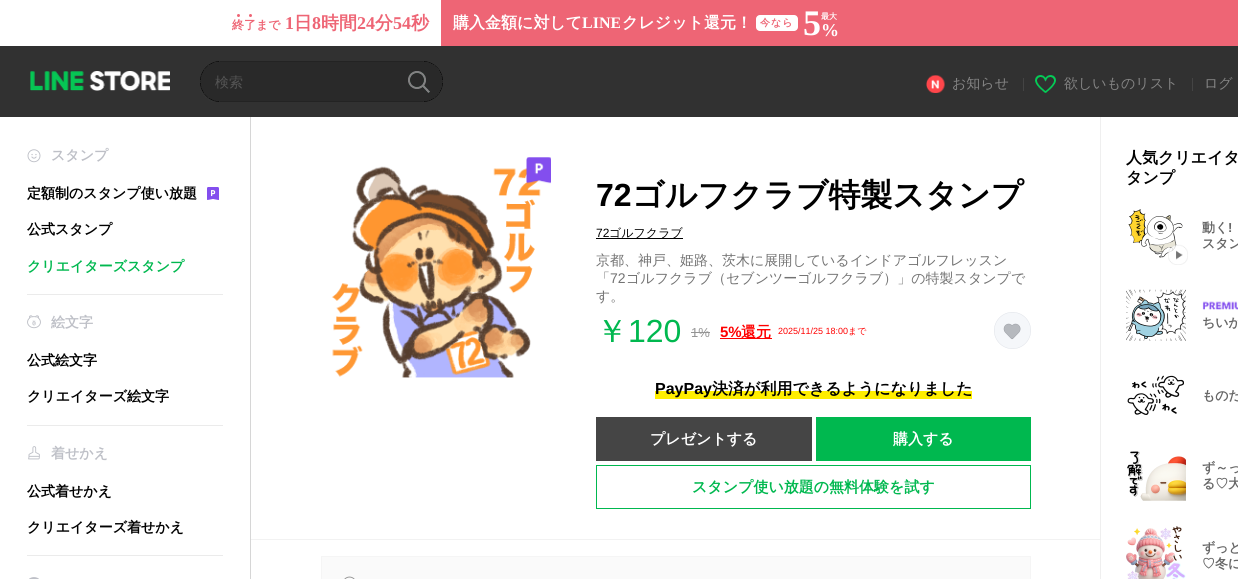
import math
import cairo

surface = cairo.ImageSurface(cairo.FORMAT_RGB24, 1238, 579)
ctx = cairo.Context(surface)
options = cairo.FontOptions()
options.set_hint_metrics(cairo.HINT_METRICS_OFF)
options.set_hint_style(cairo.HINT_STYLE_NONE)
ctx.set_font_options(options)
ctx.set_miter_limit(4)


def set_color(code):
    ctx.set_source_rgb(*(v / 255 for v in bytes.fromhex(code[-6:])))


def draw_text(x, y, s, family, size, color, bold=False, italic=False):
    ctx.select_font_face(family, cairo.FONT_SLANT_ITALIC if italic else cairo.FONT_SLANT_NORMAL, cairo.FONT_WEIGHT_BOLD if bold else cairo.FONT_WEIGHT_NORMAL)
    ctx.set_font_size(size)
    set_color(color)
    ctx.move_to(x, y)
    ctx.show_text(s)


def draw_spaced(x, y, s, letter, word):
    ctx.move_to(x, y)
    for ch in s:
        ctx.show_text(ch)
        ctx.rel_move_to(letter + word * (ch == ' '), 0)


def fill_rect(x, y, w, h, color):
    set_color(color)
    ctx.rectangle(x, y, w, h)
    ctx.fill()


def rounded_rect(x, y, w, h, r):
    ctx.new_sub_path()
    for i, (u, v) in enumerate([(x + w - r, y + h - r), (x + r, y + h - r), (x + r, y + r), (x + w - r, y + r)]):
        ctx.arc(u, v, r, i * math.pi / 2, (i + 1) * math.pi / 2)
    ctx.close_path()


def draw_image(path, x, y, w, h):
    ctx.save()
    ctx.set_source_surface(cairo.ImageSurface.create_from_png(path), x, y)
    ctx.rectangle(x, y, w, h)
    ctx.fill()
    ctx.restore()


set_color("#ffffff")
ctx.paint()
set_color("#ee6575")
ctx.arc(238.5, 15.5, 1.5, 0, 2 * math.pi)
ctx.fill()
ctx.arc(250.5, 15.5, 1.5, 0, 2 * math.pi)
ctx.fill()
draw_text(232, 29, "終了まで", "WenQuanYi Zen Hei", 12, "#ee6575", bold=True)
draw_text(285, 29, "1", "Liberation Serif", 18, "#ee6575", bold=True)
draw_text(294, 29, "日", "WenQuanYi Zen Hei", 18, "#ee6575", bold=True)
draw_text(312, 29, "8", "Liberation Serif", 18, "#ee6575", bold=True)
draw_text(321, 29, "時間", "WenQuanYi Zen Hei", 18, "#ee6575", bold=True)
draw_text(357, 29, "24", "Liberation Serif", 18, "#ee6575", bold=True)
draw_text(375, 29, "分", "WenQuanYi Zen Hei", 18, "#ee6575", bold=True)
draw_text(393, 29, "54", "Liberation Serif", 18, "#ee6575", bold=True)
draw_text(411, 29, "秒", "WenQuanYi Zen Hei", 18, "#ee6575", bold=True)
fill_rect(441, 0, 797, 46, "#ee6575")
draw_text(453, 28, "購入金額に対して", "WenQuanYi Zen Hei", 16, "#ffffff", bold=True)
draw_text(582, 28, "LINE", "Liberation Serif", 16, "#ffffff", bold=True)
draw_text(622, 28, "クレジット還元！", "WenQuanYi Zen Hei", 16, "#ffffff", bold=True)
rounded_rect(756, 15, 42, 16, 4)
ctx.fill()
ctx.set_font_size(10)
set_color("#ee6575")
draw_spaced(760, 26, "今なら", 1, 0)
draw_text(803, 35, "5", "Liberation Serif", 36, "#ffffff", bold=True)
draw_text(821, 19, "最大", "WenQuanYi Zen Hei", 8, "#ffffff", bold=True)
draw_text(821, 36, "%", "Liberation Serif", 18, "#ffffff", bold=True)
fill_rect(0, 46, 1238, 71, "#313131")
draw_image("assets/img1.png", 30, 71, 140, 20)
draw_image("assets/img2.png", 200, 61, 243, 41)
draw_text(215, 87, "検索", "WenQuanYi Zen Hei Medium", 14, "#545454")
draw_image("assets/img3.png", 408, 71, 22, 22)
draw_image("assets/img4.png", 926, 75, 19, 18)
draw_text(952, 88, "お知らせ", "WenQuanYi Zen Hei Medium", 14, "#848484")
fill_rect(1023, 78, 1, 13, "#444444")
draw_image("assets/img5.png", 1035, 75, 21, 18)
draw_text(1064, 88, "欲しいものリスト", "WenQuanYi Zen Hei Medium", 14, "#848484")
fill_rect(1192, 78, 1, 13, "#444444")
draw_text(1204, 88, "ログ", "WenQuanYi Zen Hei Medium", 14, "#848484")
draw_image("assets/img6.png", 27, 149, 14, 14)
draw_text(51, 160, "スタンプ", "WenQuanYi Zen Hei", 14, "#bec0c7", bold=True)
draw_text(27, 198, "定額制のスタンプ使い放題", "WenQuanYi Zen Hei", 14, "#000000", bold=True)
draw_image("assets/img7.png", 207, 187, 12, 13)
draw_text(27, 234, "公式スタンプ", "WenQuanYi Zen Hei", 14, "#000000", bold=True)
draw_text(27, 271, "クリエイターズスタンプ", "WenQuanYi Zen Hei", 14, "#00b84f", bold=True)
fill_rect(27, 294, 196, 1, "#ebebeb")
draw_image("assets/img8.png", 27, 315, 14, 14)
draw_text(51, 327, "絵文字", "WenQuanYi Zen Hei", 14, "#bec0c7", bold=True)
draw_text(27, 365, "公式絵文字", "WenQuanYi Zen Hei", 14, "#000000", bold=True)
draw_text(27, 401, "クリエイターズ絵文字", "WenQuanYi Zen Hei", 14, "#000000", bold=True)
fill_rect(27, 425, 196, 1, "#ebebeb")
draw_image("assets/img9.png", 28, 446, 12, 14)
draw_text(51, 458, "着せかえ", "WenQuanYi Zen Hei", 14, "#bec0c7", bold=True)
draw_text(27, 496, "公式着せかえ", "WenQuanYi Zen Hei", 14, "#000000", bold=True)
draw_text(27, 532, "クリエイターズ着せかえ", "WenQuanYi Zen Hei", 14, "#000000", bold=True)
fill_rect(27, 555, 196, 1, "#ebebeb")
draw_image("assets/img10.png", 29, 577, 10, 2)
fill_rect(250, 117, 1, 462, "#d6d6d6")
draw_image("assets/img12.png", 331, 166, 210, 212)
draw_image("assets/img11.png", 526, 157, 25, 27)
draw_text(596, 206, "72", "Liberation Sans", 32, "#000000", bold=True)
draw_text(632, 206, "ゴルフクラブ特製スタンプ", "WenQuanYi Zen Hei", 32, "#000000", bold=True)
draw_text(596, 237, "72", "Liberation Sans", 12, "#000000")
fill_rect(596, 238, 87, 1, "#000000")
draw_text(609, 237, "ゴルフクラブ", "WenQuanYi Zen Hei Medium", 12, "#000000")
draw_text(596, 265, "京都、神戸、姫路、茨木に展開しているインドアゴルフレッスン", "WenQuanYi Zen Hei Medium", 14, "#737373")
draw_text(596, 283, "「", "WenQuanYi Zen Hei Medium", 14, "#737373")
draw_text(610, 283, "72", "Liberation Sans", 14, "#737373")
draw_text(626, 283, "ゴルフクラブ（セブンツーゴルフクラブ）」の特製スタンプで", "WenQuanYi Zen Hei Medium", 14, "#737373")
draw_text(596, 301, "す。", "WenQuanYi Zen Hei Medium", 14, "#737373")
draw_text(596, 342, "￥", "WenQuanYi Zen Hei Medium", 32, "#00b84f")
draw_text(628, 342, "120", "Liberation Sans", 32, "#00b84f")
draw_text(691, 337, "1%", "Liberation Sans", 13, "#949494")
fill_rect(691, 332, 19, 1, "#949494")
draw_text(720, 337, "5%", "Liberation Sans", 15, "#ff0000", bold=True)
fill_rect(720, 338, 52, 1, "#ff0000")
draw_text(741, 337, "還元", "WenQuanYi Zen Hei", 15, "#ff0000", bold=True)
draw_text(778, 334, "2025/11/25 18:00", "Liberation Sans", 9, "#ff0000")
draw_text(848, 334, "まで", "WenQuanYi Zen Hei Medium", 9, "#ff0000")
draw_image("assets/img13.png", 994, 312, 37, 37)
fill_rect(655, 391, 317, 8, "#ffee00")
draw_text(655, 394, "PayPay", "Liberation Sans", 16, "#000000", bold=True)
draw_text(712, 394, "決済が利用できるようになりました", "WenQuanYi Zen Hei", 16, "#000000", bold=True)
fill_rect(596, 417, 216, 44, "#454545")
draw_text(650, 444, "プレゼントする", "WenQuanYi Zen Hei", 15, "#ffffff", bold=True)
fill_rect(816, 417, 215, 44, "#00b84f")
draw_text(893, 444, "購入する", "WenQuanYi Zen Hei", 15, "#ffffff", bold=True)
ctx.rectangle(596.5, 465.5, 434, 43)
set_color("#00b84f")
ctx.set_line_width(1)
ctx.stroke()
draw_text(692, 492, "スタンプ使い放題の無料体験を試す", "WenQuanYi Zen Hei", 15, "#00b84f", bold=True)
fill_rect(251, 539, 850, 1, "#f2f2f2")
fill_rect(1100, 117, 1, 462, "#efefef")
set_color("#fafafa")
ctx.rectangle(321.5, 556.5, 709, 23)
ctx.fill_preserve()
set_color("#f5f5f5")
ctx.stroke()
draw_image("assets/img14.png", 344, 576, 11, 3)
draw_text(1126, 163, "人気クリエイタ", "WenQuanYi Zen Hei", 16, "#000000", bold=True)
draw_text(1126, 183, "タンプ", "WenQuanYi Zen Hei", 16, "#000000", bold=True)
draw_image("assets/img15.png", 1128, 209, 55, 49)
draw_image("assets/img16.png", 1168, 244, 20, 21)
draw_text(1202, 232, "動く", "WenQuanYi Zen Hei", 13, "#666666", bold=True)
draw_text(1228, 232, "!", "Liberation Sans", 13, "#666666", bold=True)
draw_text(1202, 248, "スタン", "WenQuanYi Zen Hei", 13, "#666666", bold=True)
draw_image("assets/img17.png", 1126, 289, 60, 52)
draw_image("assets/img18.png", 1202, 301, 36, 9)
draw_text(1202, 327, "ちいか", "WenQuanYi Zen Hei", 13, "#666666", bold=True)
draw_image("assets/img19.png", 1127, 375, 57, 40)
draw_text(1202, 400, "ものた", "WenQuanYi Zen Hei", 13, "#666666", bold=True)
draw_image("assets/img20.png", 1127, 451, 59, 50)
draw_text(1202, 472, "ず～っ", "WenQuanYi Zen Hei", 13, "#666666", bold=True)
draw_text(1202, 488, "る♡大", "WenQuanYi Zen Hei", 13, "#666666", bold=True)
draw_image("assets/img21.png", 1126, 526, 60, 53)
draw_text(1202, 552, "ずっと", "WenQuanYi Zen Hei", 13, "#666666", bold=True)
draw_text(1202, 568, "♡冬に", "WenQuanYi Zen Hei", 13, "#666666", bold=True)
surface.write_to_png("output.png")
